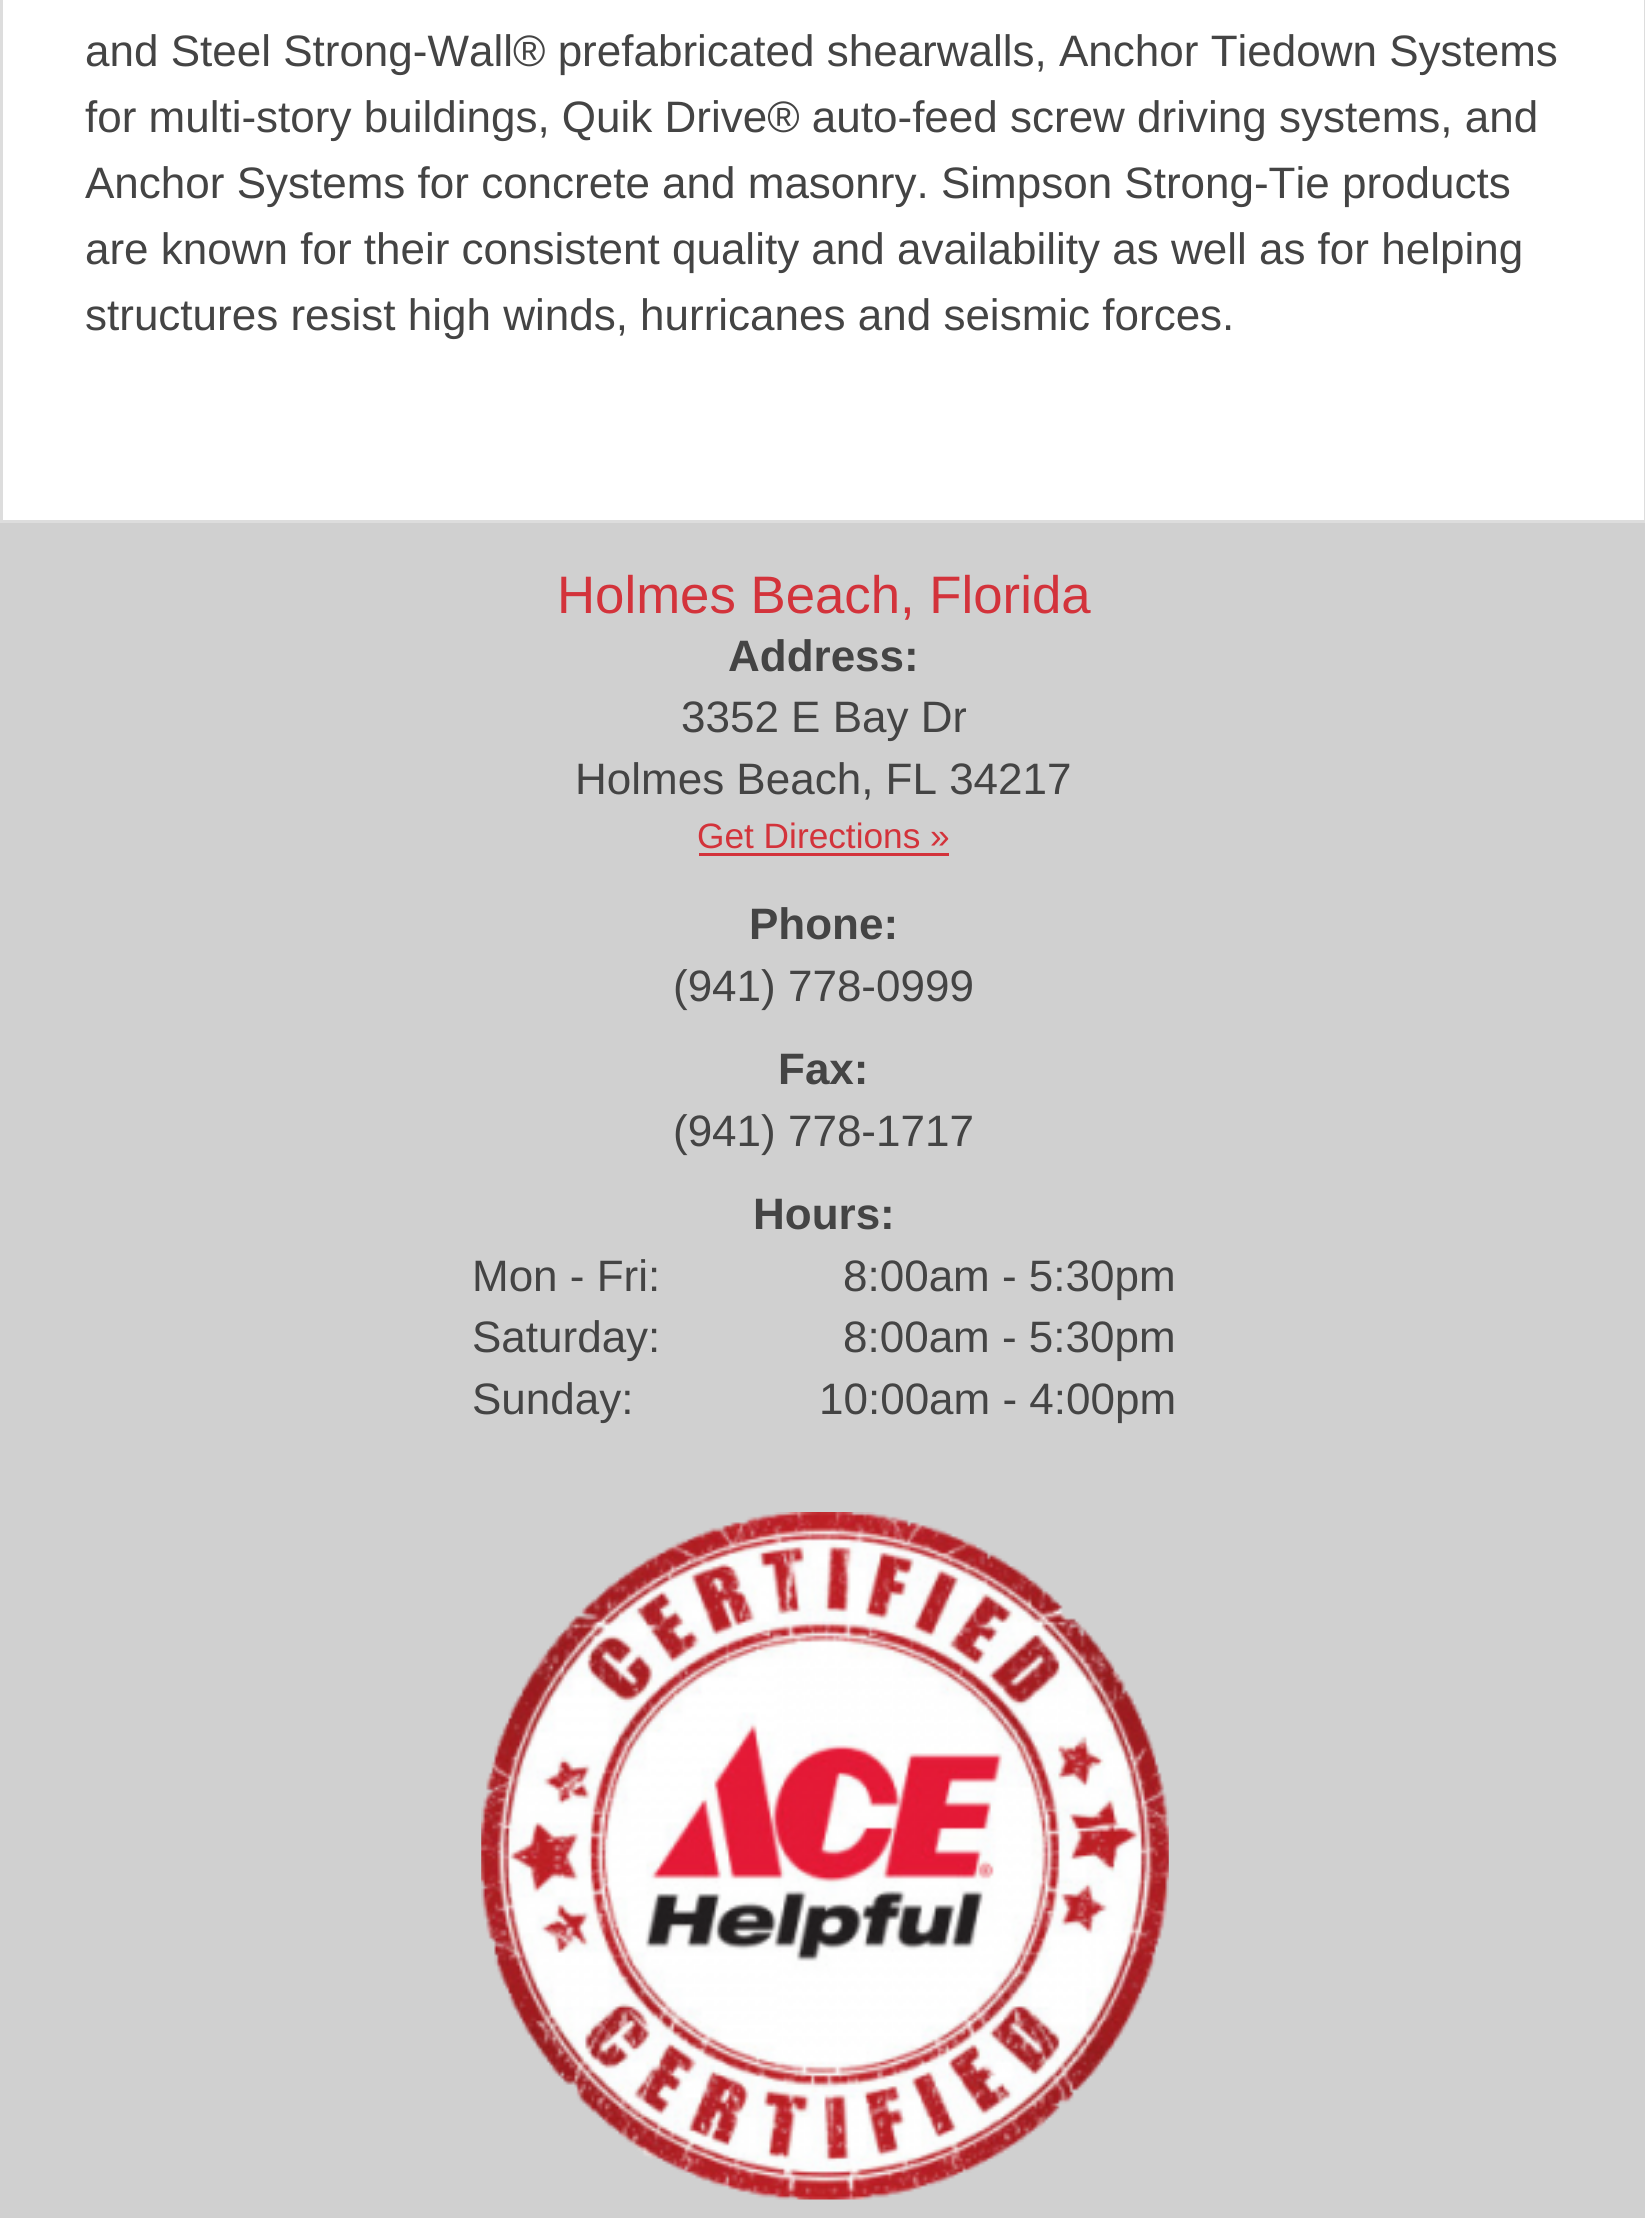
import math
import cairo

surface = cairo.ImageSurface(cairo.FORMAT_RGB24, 1645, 2218)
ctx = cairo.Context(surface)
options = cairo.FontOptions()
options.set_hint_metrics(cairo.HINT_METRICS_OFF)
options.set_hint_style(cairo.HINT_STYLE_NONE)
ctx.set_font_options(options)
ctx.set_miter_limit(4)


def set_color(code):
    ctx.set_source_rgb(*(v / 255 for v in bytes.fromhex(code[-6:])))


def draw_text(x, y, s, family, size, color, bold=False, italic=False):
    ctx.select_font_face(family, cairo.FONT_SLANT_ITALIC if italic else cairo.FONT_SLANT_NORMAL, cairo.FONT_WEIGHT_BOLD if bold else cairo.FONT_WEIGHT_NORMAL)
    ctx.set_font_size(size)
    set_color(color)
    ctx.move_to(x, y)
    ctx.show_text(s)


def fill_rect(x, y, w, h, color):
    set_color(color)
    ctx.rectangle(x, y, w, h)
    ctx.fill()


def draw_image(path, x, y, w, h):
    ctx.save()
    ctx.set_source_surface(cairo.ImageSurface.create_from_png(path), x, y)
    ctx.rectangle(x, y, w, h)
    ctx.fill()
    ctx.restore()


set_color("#d0d0d0")
ctx.paint()
set_color("#ffffff")
ctx.rectangle(1.5, -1.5, 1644, 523)
ctx.fill_preserve()
set_color("#dddddd")
ctx.set_line_width(3)
ctx.stroke()
draw_text(85, 66, "and Steel Strong-Wall® prefabricated shearwalls, Anchor Tiedown Systems", "Liberation Sans", 44, "#444444")
draw_text(85, 132, "for multi-story buildings, Quik Drive® auto-feed screw driving systems, and", "Liberation Sans", 44, "#444444")
draw_text(85, 198, "Anchor Systems for concrete and masonry. Simpson Strong-Tie products", "Liberation Sans", 44, "#444444")
draw_text(85, 264, "are known for their consistent quality and availability as well as for helping", "Liberation Sans", 44, "#444444")
draw_text(85, 330, "structures resist high winds, hurricanes and seismic forces.", "Liberation Sans", 44, "#444444")
draw_text(557, 613, "Holmes Beach, Florida", "Liberation Sans", 52.75, "#d3333b")
draw_text(728, 671, "Address:", "Liberation Sans", 44, "#444444", bold=True)
draw_text(681, 732, "3352 E Bay Dr", "Liberation Sans", 44, "#444444")
draw_text(575, 794, "Holmes Beach, FL 34217", "Liberation Sans", 44, "#444444")
draw_text(697, 848, "Get Directions »", "Liberation Sans", 35.25, "#d3333b")
fill_rect(699, 853, 250, 3, "#d3333b")
draw_text(749, 939, "Phone:", "Liberation Sans", 44, "#444444", bold=True)
draw_text(673, 1001, "(941) 778-0999", "Liberation Sans", 44, "#444444")
draw_text(778, 1084, "Fax:", "Liberation Sans", 44, "#444444", bold=True)
draw_text(673, 1146, "(941) 778-1717", "Liberation Sans", 44, "#444444")
draw_text(753, 1229, "Hours:", "Liberation Sans", 44, "#444444", bold=True)
draw_text(472, 1291, "Mon - Fri:", "Liberation Sans", 44, "#444444")
draw_text(843, 1291, "8:00am - 5:30pm", "Liberation Sans", 44, "#444444")
draw_text(472, 1352, "Saturday:", "Liberation Sans", 44, "#444444")
draw_text(843, 1352, "8:00am - 5:30pm", "Liberation Sans", 44, "#444444")
draw_text(472, 1414, "Sunday:", "Liberation Sans", 44, "#444444")
draw_text(819, 1414, "10:00am - 4:00pm", "Liberation Sans", 44, "#444444")
draw_image("assets/img1.png", 481, 1512, 688, 688)
surface.write_to_png("output.png")
